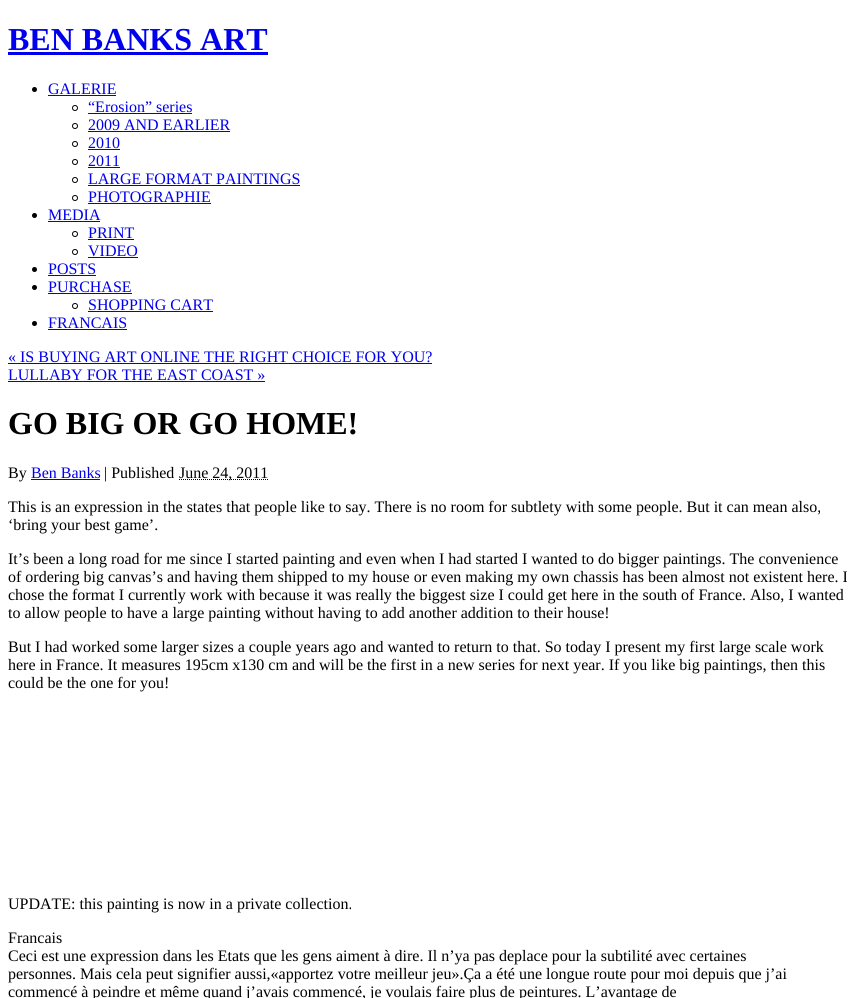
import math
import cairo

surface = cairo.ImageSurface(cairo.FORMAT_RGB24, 861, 998)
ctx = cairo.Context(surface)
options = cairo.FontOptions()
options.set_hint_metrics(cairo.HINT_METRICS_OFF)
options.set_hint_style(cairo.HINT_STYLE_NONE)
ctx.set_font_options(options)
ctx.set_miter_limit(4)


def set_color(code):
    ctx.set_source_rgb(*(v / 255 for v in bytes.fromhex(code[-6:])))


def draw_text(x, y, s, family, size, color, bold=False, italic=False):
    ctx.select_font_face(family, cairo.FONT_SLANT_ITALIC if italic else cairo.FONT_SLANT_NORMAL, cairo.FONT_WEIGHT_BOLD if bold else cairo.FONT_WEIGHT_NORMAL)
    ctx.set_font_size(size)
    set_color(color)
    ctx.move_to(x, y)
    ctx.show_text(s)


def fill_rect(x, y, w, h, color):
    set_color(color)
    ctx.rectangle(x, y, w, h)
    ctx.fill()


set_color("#ffffff")
ctx.paint()
draw_text(8, 50, "BEN BANKS ART", "Liberation Serif", 32, "#0000ee", bold=True)
fill_rect(8, 52, 260, 3, "#0000ee")
set_color("#000000")
ctx.new_path()
ctx.arc(34.5, 89.5, 2.5, 0, 2 * math.pi)
ctx.fill()
draw_text(48, 94, "GALERIE", "Liberation Serif", 16, "#0000ee")
fill_rect(48, 95, 68, 1, "#0000ee")
ctx.new_path()
ctx.arc(75, 108, 2.5, 0, 2 * math.pi)
set_color("#000000")
ctx.set_line_width(1)
ctx.stroke()
draw_text(88, 112, "“Erosion” series", "Liberation Serif", 16, "#0000ee")
fill_rect(88, 113, 104, 1, "#0000ee")
ctx.new_path()
ctx.arc(75, 126, 2.5, 0, 2 * math.pi)
set_color("#000000")
ctx.stroke()
draw_text(88, 130, "2009 AND EARLIER", "Liberation Serif", 16, "#0000ee")
fill_rect(88, 131, 142, 1, "#0000ee")
ctx.new_path()
ctx.arc(75, 144, 2.5, 0, 2 * math.pi)
set_color("#000000")
ctx.stroke()
draw_text(88, 148, "2010", "Liberation Serif", 16, "#0000ee")
fill_rect(88, 149, 32, 1, "#0000ee")
ctx.new_path()
ctx.arc(75, 162, 2.5, 0, 2 * math.pi)
set_color("#000000")
ctx.stroke()
draw_text(88, 166, "2011", "Liberation Serif", 16, "#0000ee")
fill_rect(88, 167, 32, 1, "#0000ee")
ctx.new_path()
ctx.arc(75, 180, 2.5, 0, 2 * math.pi)
set_color("#000000")
ctx.stroke()
draw_text(88, 184, "LARGE FORMAT PAINTINGS", "Liberation Serif", 16, "#0000ee")
fill_rect(88, 185, 212, 1, "#0000ee")
ctx.new_path()
ctx.arc(75, 198, 2.5, 0, 2 * math.pi)
set_color("#000000")
ctx.stroke()
draw_text(88, 202, "PHOTOGRAPHIE", "Liberation Serif", 16, "#0000ee")
fill_rect(88, 203, 123, 1, "#0000ee")
set_color("#000000")
ctx.new_path()
ctx.arc(34.5, 215.5, 2.5, 0, 2 * math.pi)
ctx.fill()
draw_text(48, 220, "MEDIA", "Liberation Serif", 16, "#0000ee")
fill_rect(48, 221, 52, 1, "#0000ee")
ctx.new_path()
ctx.arc(75, 234, 2.5, 0, 2 * math.pi)
set_color("#000000")
ctx.stroke()
draw_text(88, 238, "PRINT", "Liberation Serif", 16, "#0000ee")
fill_rect(88, 239, 46, 1, "#0000ee")
ctx.new_path()
ctx.arc(75, 252, 2.5, 0, 2 * math.pi)
set_color("#000000")
ctx.stroke()
draw_text(88, 256, "VIDEO", "Liberation Serif", 16, "#0000ee")
fill_rect(88, 257, 50, 1, "#0000ee")
set_color("#000000")
ctx.new_path()
ctx.arc(34.5, 269.5, 2.5, 0, 2 * math.pi)
ctx.fill()
draw_text(48, 274, "POSTS", "Liberation Serif", 16, "#0000ee")
fill_rect(48, 275, 48, 1, "#0000ee")
set_color("#000000")
ctx.new_path()
ctx.arc(34.5, 287.5, 2.5, 0, 2 * math.pi)
ctx.fill()
draw_text(48, 292, "PURCHASE", "Liberation Serif", 16, "#0000ee")
fill_rect(48, 293, 84, 1, "#0000ee")
ctx.new_path()
ctx.arc(75, 306, 2.5, 0, 2 * math.pi)
set_color("#000000")
ctx.stroke()
draw_text(88, 310, "SHOPPING CART", "Liberation Serif", 16, "#0000ee")
fill_rect(88, 311, 125, 1, "#0000ee")
set_color("#000000")
ctx.new_path()
ctx.arc(34.5, 323.5, 2.5, 0, 2 * math.pi)
ctx.fill()
draw_text(48, 328, "FRANCAIS", "Liberation Serif", 16, "#0000ee")
fill_rect(48, 329, 79, 1, "#0000ee")
draw_text(8, 362, "« IS BUYING ART ONLINE THE RIGHT CHOICE FOR YOU?", "Liberation Serif", 16, "#0000ee")
fill_rect(8, 363, 424, 1, "#0000ee")
draw_text(8, 380, "LULLABY FOR THE EAST COAST »", "Liberation Serif", 16, "#0000ee")
fill_rect(8, 381, 257, 1, "#0000ee")
draw_text(8, 434, "GO BIG OR GO HOME!", "Liberation Serif", 32, "#000000", bold=True)
draw_text(8, 478, "By", "Liberation Serif", 16, "#000000")
draw_text(31, 478, "Ben Banks", "Liberation Serif", 16, "#0000ee")
fill_rect(31, 479, 69, 1, "#0000ee")
draw_text(104, 478, "| Published", "Liberation Serif", 16, "#000000")
ctx.new_path()
ctx.move_to(179, 479.5)
ctx.line_to(268, 479.5)
ctx.set_dash([1, 1])
ctx.stroke()
draw_text(179, 478, "June 24, 2011", "Liberation Serif", 16, "#000000")
draw_text(8, 512, "This is an expression in the states that people like to say. There is no room for subtlety with some people. But it can mean also,", "Liberation Serif", 16, "#000000")
draw_text(8, 530, "‘bring your best game’.", "Liberation Serif", 16, "#000000")
draw_text(8, 564, "It’s been a long road for me since I started painting and even when I had started I wanted to do bigger paintings. The convenience", "Liberation Serif", 16, "#000000")
draw_text(8, 582, "of ordering big canvas’s and having them shipped to my house or even making my own chassis has been almost not existent here. I", "Liberation Serif", 16, "#000000")
draw_text(8, 600, "chose the format I currently work with because it was really the biggest size I could get here in the south of France. Also, I wanted", "Liberation Serif", 16, "#000000")
draw_text(8, 618, "to allow people to have a large painting without having to add another addition to their house!", "Liberation Serif", 16, "#000000")
draw_text(8, 652, "But I had worked some larger sizes a couple years ago and wanted to return to that. So today I present my first large scale work", "Liberation Serif", 16, "#000000")
draw_text(8, 670, "here in France. It measures 195cm x130 cm and will be the first in a new series for next year. If you like big paintings, then this", "Liberation Serif", 16, "#000000")
draw_text(8, 688, "could be the one for you!", "Liberation Serif", 16, "#000000")
draw_text(8, 909, "UPDATE: this painting is now in a private collection.", "Liberation Serif", 16, "#000000")
draw_text(8, 943, "Francais", "Liberation Serif", 16, "#000000")
draw_text(8, 961, "Ceci est une expression dans les Etats que les gens aiment à dire. Il n’ya pas deplace pour la subtilité avec certaines", "Liberation Serif", 16, "#000000")
draw_text(8, 979, "personnes. Mais cela peut signifier aussi,«apportez votre meilleur jeu».Ça a été une longue route pour moi depuis que j’ai", "Liberation Serif", 16, "#000000")
draw_text(8, 997, "commencé à peindre et même quand j’avais commencé, je voulais faire plus de peintures. L’avantage de", "Liberation Serif", 16, "#000000")
surface.write_to_png("output.png")
